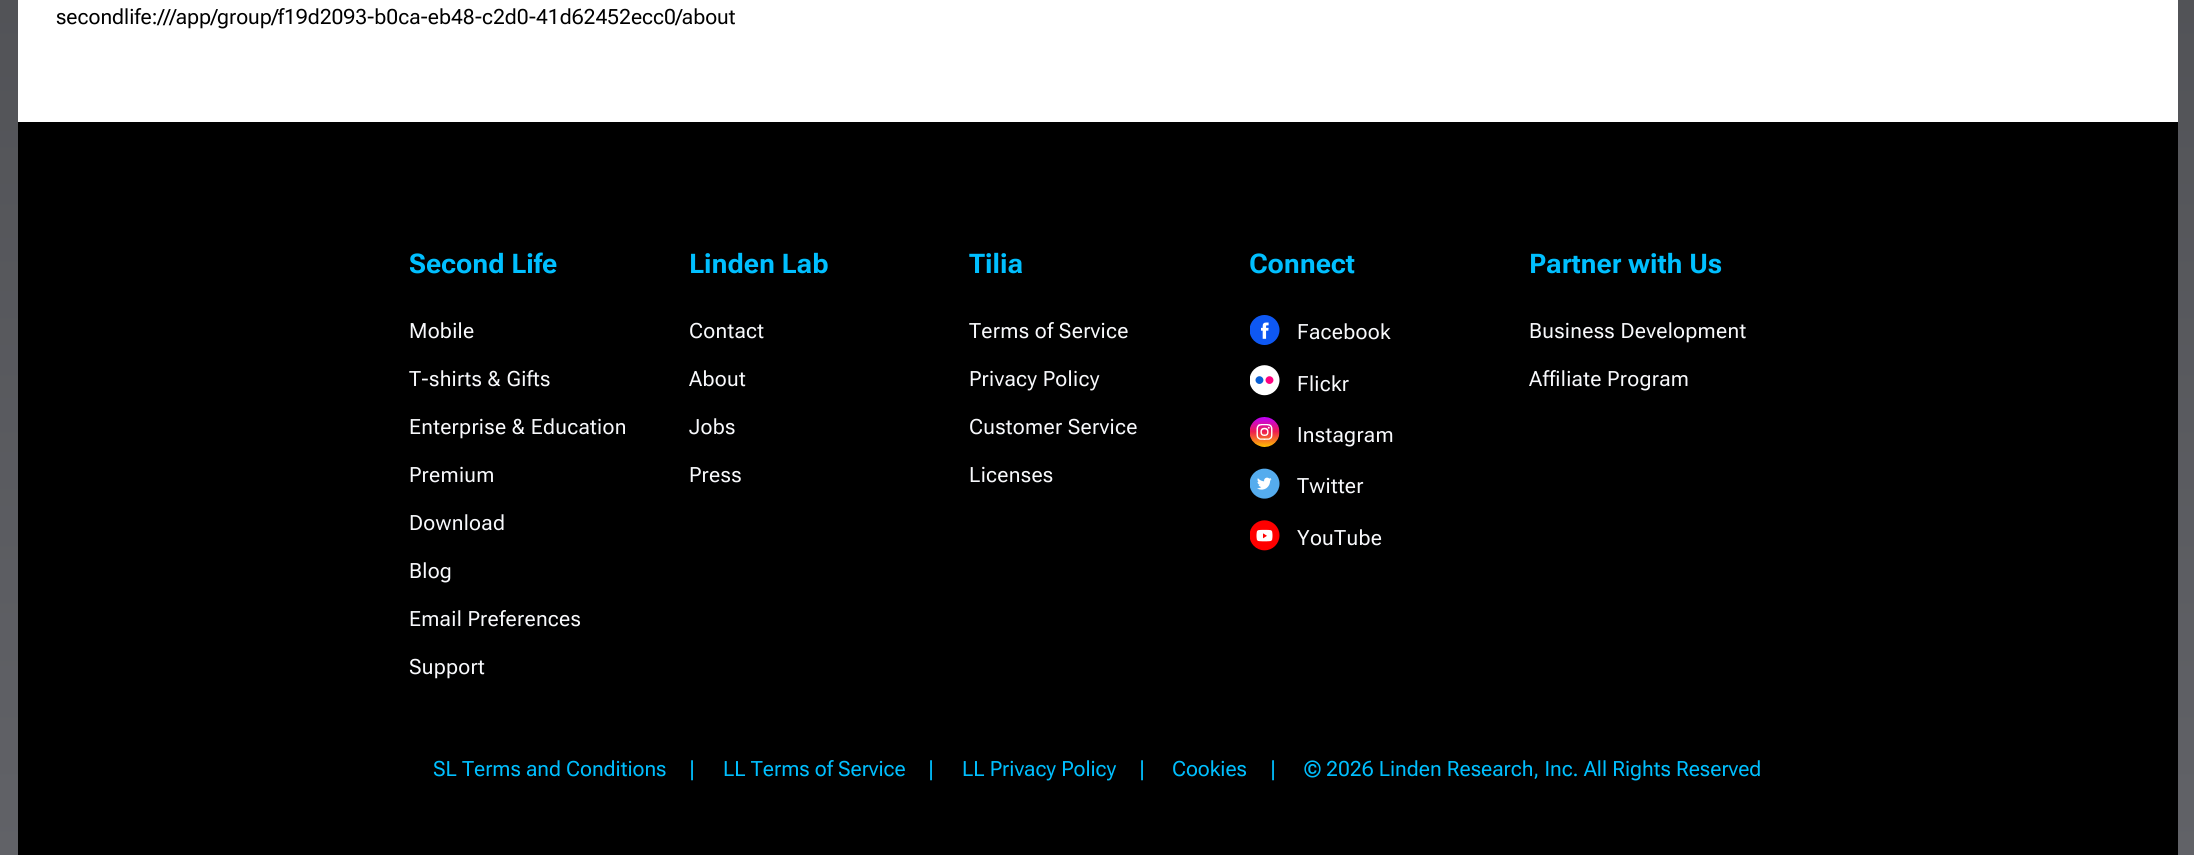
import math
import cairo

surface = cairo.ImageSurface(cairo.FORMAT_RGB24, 2194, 855)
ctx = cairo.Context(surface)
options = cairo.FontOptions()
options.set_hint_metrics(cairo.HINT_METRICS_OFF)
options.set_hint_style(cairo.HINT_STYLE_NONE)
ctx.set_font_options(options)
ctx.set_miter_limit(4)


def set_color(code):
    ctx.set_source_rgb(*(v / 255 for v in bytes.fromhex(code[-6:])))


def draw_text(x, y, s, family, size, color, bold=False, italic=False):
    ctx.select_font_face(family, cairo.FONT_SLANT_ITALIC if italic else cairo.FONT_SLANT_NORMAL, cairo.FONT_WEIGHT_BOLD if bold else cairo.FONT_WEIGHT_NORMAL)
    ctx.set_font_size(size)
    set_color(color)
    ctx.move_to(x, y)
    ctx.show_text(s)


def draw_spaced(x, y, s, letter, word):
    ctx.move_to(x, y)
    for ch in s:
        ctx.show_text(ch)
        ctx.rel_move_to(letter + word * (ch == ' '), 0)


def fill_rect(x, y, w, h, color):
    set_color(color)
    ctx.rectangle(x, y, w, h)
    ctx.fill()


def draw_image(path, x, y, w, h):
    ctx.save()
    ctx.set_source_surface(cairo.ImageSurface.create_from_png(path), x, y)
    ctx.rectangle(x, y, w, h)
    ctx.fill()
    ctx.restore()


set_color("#ffffff")
ctx.paint()
gradient = cairo.LinearGradient(1097, -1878, 1097, 855)
gradient.add_color_stop_rgba(0, 0.192, 0.196, 0.204, 1)
gradient.add_color_stop_rgba(1, 0.38, 0.384, 0.404, 1)
ctx.set_source(gradient)
ctx.rectangle(0, 0, 2194, 855)
ctx.fill()
fill_rect(18, 0, 2160, 122, "#ffffff")
draw_text(56, 24, "secondlife:///app/group/f19d2093-b0ca-eb48-c2d0-41d62452ecc0/about", "Roboto Flex", 21, "#000000")
fill_rect(18, 122, 2160, 733, "#000000")
draw_text(409, 273, "Second Life", "Roboto Flex", 27, "#00bfff", bold=True)
ctx.select_font_face("Roboto Flex")
ctx.set_font_size(21)
set_color("#f8f9fc")
draw_spaced(409, 338, "Mobile", 0.3, 0)
draw_spaced(409, 386, "T-shirts & Gifts", 0.3, 0)
draw_spaced(409, 434, "Enterprise & Education", 0.3, 0)
draw_spaced(409, 482, "Premium", 0.3, 0)
draw_spaced(409, 530, "Download", 0.3, 0)
draw_spaced(409, 578, "Blog", 0.3, 0)
draw_spaced(409, 626, "Email Preferences", 0.3, 0)
draw_spaced(409, 674, "Support", 0.3, 0)
draw_text(689, 273, "Linden Lab", "Roboto Flex", 27, "#00bfff", bold=True)
ctx.select_font_face("Roboto Flex")
ctx.set_font_size(21)
set_color("#f8f9fc")
draw_spaced(689, 338, "Contact", 0.3, 0)
draw_spaced(689, 386, "About", 0.3, 0)
draw_spaced(689, 434, "Jobs", 0.3, 0)
draw_spaced(689, 482, "Press", 0.3, 0)
draw_text(969, 273, "Tilia", "Roboto Flex", 27, "#00bfff", bold=True)
ctx.select_font_face("Roboto Flex")
ctx.set_font_size(21)
set_color("#f8f9fc")
draw_spaced(969, 338, "Terms of Service", 0.3, 0)
draw_spaced(969, 386, "Privacy Policy", 0.3, 0)
draw_spaced(969, 434, "Customer Service", 0.3, 0)
draw_spaced(969, 482, "Licenses", 0.3, 0)
draw_text(1249, 273, "Connect", "Roboto Flex", 27, "#00bfff", bold=True)
draw_image("assets/img1.png", 1250, 315, 30, 30)
ctx.select_font_face("Roboto Flex")
ctx.set_font_size(21)
set_color("#f8f9fc")
draw_spaced(1297, 339, "Facebook", 0.3, 0)
draw_image("assets/img2.png", 1250, 365, 30, 31)
draw_spaced(1297, 391, "Flickr", 0.3, 0)
draw_image("assets/img3.png", 1250, 417, 30, 30)
draw_spaced(1297, 442, "Instagram", 0.3, 0)
draw_image("assets/img4.png", 1250, 468, 30, 31)
draw_spaced(1297, 493, "Twitter", 0.3, 0)
draw_image("assets/img5.png", 1250, 520, 30, 31)
draw_spaced(1297, 545, "YouTube", 0.3, 0)
draw_text(1529, 273, "Partner with Us", "Roboto Flex", 27, "#00bfff", bold=True)
ctx.select_font_face("Roboto Flex")
ctx.set_font_size(21)
set_color("#f8f9fc")
draw_spaced(1529, 338, "Business Development", 0.3, 0)
draw_spaced(1529, 386, "Affiliate Program", 0.3, 0)
draw_text(433, 776, "SL Terms and Conditions", "Roboto Flex", 21, "#00bfff")
draw_text(689, 776, "|", "Roboto Flex", 21, "#00bfff")
draw_text(723, 776, "LL Terms of Service", "Roboto Flex", 21, "#00bfff")
draw_text(928, 776, "|", "Roboto Flex", 21, "#00bfff")
draw_text(962, 776, "LL Privacy Policy", "Roboto Flex", 21, "#00bfff")
draw_text(1139, 776, "|", "Roboto Flex", 21, "#00bfff")
draw_text(1172, 776, "Cookies", "Roboto Flex", 21, "#00bfff")
draw_text(1270, 776, "|", "Roboto Flex", 21, "#00bfff")
draw_text(1304, 776, "© 2026 Linden Research, Inc. All Rights Reserved", "Roboto Flex", 21, "#00bfff")
surface.write_to_png("output.png")
